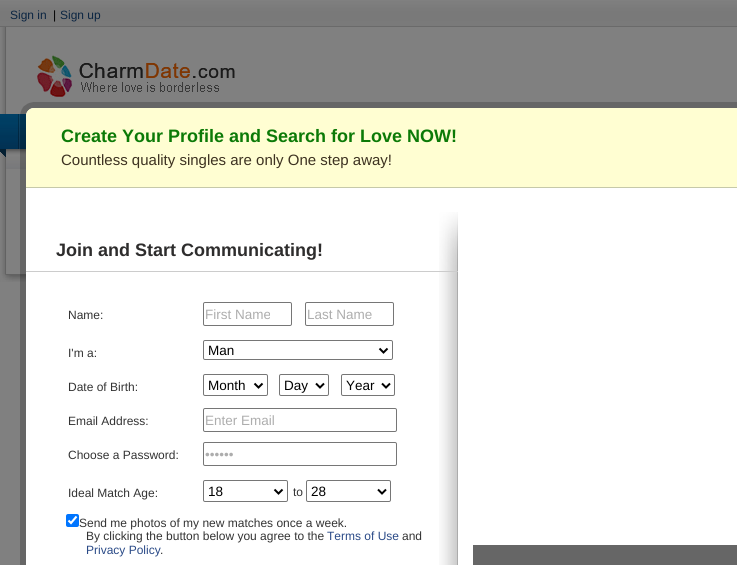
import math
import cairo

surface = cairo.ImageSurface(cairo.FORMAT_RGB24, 737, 565)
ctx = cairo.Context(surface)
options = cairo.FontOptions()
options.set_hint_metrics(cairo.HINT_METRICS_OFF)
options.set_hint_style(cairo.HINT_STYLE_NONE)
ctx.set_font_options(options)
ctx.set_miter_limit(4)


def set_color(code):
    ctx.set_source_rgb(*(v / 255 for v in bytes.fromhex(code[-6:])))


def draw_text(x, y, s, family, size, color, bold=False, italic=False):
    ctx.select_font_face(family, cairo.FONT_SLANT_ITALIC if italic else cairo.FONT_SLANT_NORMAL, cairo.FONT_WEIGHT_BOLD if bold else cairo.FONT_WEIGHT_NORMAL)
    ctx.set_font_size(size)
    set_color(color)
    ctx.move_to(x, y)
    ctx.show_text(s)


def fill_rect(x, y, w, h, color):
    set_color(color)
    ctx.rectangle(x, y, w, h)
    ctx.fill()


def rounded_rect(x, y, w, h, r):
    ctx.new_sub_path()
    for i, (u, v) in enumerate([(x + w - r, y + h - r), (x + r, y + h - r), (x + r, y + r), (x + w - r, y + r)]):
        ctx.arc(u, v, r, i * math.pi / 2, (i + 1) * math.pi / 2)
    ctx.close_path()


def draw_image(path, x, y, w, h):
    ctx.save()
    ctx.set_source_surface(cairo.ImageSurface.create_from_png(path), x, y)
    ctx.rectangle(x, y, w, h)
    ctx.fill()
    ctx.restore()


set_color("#808080")
ctx.paint()
draw_image("assets/img1.png", 0, 27, 737, 255)
draw_image("assets/img2.png", 0, 0, 737, 27)
draw_text(10, 19, "Sign in", "Liberation Sans", 12, "#0b2542")
draw_text(53, 19, "|", "Liberation Sans", 12, "#000000")
draw_text(60, 19, "Sign up", "Liberation Sans", 12, "#0b2542")
draw_image("assets/img3.png", 37, 55, 198, 42)
draw_image("assets/img4.png", 0, 114, 27, 35)
draw_image("assets/img5.png", 18, 114, 2, 35)
draw_image("assets/img6.png", 0, 149, 6, 8)
draw_image("assets/img7.png", 6, 149, 20, 20)
draw_image("assets/img8.png", 1, 274, 25, 8)
draw_image("assets/img9.png", 20, 102, 22, 22)
draw_image("assets/img10.png", 42, 102, 695, 22)
draw_image("assets/img11.png", 20, 124, 6, 441)
fill_rect(26, 124, 711, 63, "#fffed2")
fill_rect(26, 187, 711, 1, "#c6c9a9")
draw_text(61, 142, "Create Your Profile and Search for Love NOW!", "Liberation Sans", 18, "#0c7a07", bold=True)
draw_text(61, 165, "Countless quality singles are only One step away!", "Liberation Sans", 15, "#3d3221")
fill_rect(26, 188, 711, 377, "#ffffff")
draw_image("assets/img12.png", 439, 212, 19, 353)
fill_rect(26, 271, 432, 1, "#cccccc")
draw_text(56, 256, "Join and Start Communicating!", "Liberation Sans", 18, "#2e2d2d", bold=True)
draw_text(68, 319, "Name:", "Liberation Sans", 12, "#333333")
rounded_rect(203.5, 302.5, 88, 23, 1.5)
set_color("#767676")
ctx.set_line_width(1)
ctx.stroke()
draw_text(205, 319, "First Name", "Liberation Sans", 13.5, "#adadad")
rounded_rect(305.5, 302.5, 88, 23, 1.5)
set_color("#767676")
ctx.stroke()
draw_text(307, 319, "Last Name", "Liberation Sans", 13.5, "#adadad")
draw_text(68, 357, "I'm a:", "Liberation Sans", 12, "#333333")
rounded_rect(203.5, 340.5, 189, 19, 1.5)
set_color("#767676")
ctx.stroke()
ctx.new_path()
ctx.move_to(379.5, 348.5)
ctx.line_to(383.5, 352.5)
ctx.line_to(387.5, 348.5)
set_color("#000000")
ctx.set_line_width(2)
ctx.stroke()
draw_text(208, 355, "Man", "Liberation Sans", 13.5, "#000000")
draw_text(68, 391, "Date of Birth:", "Liberation Sans", 12, "#333333")
rounded_rect(203.5, 374.5, 64, 21, 1.5)
set_color("#767676")
ctx.set_line_width(1)
ctx.stroke()
ctx.new_path()
ctx.move_to(254.5, 383.5)
ctx.line_to(258.5, 387.5)
ctx.line_to(262.5, 383.5)
set_color("#000000")
ctx.set_line_width(2)
ctx.stroke()
draw_text(208, 390, "Month", "Liberation Sans", 13.5, "#000000")
rounded_rect(279.5, 374.5, 49, 21, 1.5)
set_color("#767676")
ctx.set_line_width(1)
ctx.stroke()
ctx.new_path()
ctx.move_to(316, 383.5)
ctx.line_to(320, 387.5)
ctx.line_to(324, 383.5)
set_color("#000000")
ctx.set_line_width(2)
ctx.stroke()
draw_text(284, 390, "Day", "Liberation Sans", 13.5, "#000000")
rounded_rect(341.5, 374.5, 53, 21, 1.5)
set_color("#767676")
ctx.set_line_width(1)
ctx.stroke()
ctx.new_path()
ctx.move_to(382, 383.5)
ctx.line_to(386, 387.5)
ctx.line_to(390, 383.5)
set_color("#000000")
ctx.set_line_width(2)
ctx.stroke()
draw_text(346, 390, "Year", "Liberation Sans", 13.5, "#000000")
draw_text(68, 425, "Email Address:", "Liberation Sans", 12, "#333333")
rounded_rect(203.5, 408.5, 193, 23, 1.5)
set_color("#767676")
ctx.set_line_width(1)
ctx.stroke()
draw_text(205, 425, "Enter Email", "Liberation Sans", 13.5, "#adadad")
draw_text(68, 459, "Choose a Password:", "Liberation Sans", 12, "#333333")
rounded_rect(203.5, 442.5, 193, 23, 1.5)
set_color("#767676")
ctx.stroke()
draw_text(205, 459, "••••••", "Liberation Sans", 13.5, "#adadad")
draw_text(68, 497, "Ideal Match Age:", "Liberation Sans", 12, "#333333")
rounded_rect(203.5, 480.5, 84, 21, 1.5)
set_color("#767676")
ctx.stroke()
ctx.new_path()
ctx.move_to(274.5, 489.5)
ctx.line_to(278.5, 493.5)
ctx.line_to(282.5, 489.5)
set_color("#000000")
ctx.set_line_width(2)
ctx.stroke()
draw_text(208, 496, "18", "Liberation Sans", 13.5, "#000000")
draw_text(293, 496, "to", "Liberation Sans", 12, "#333333")
rounded_rect(306.5, 480.5, 84, 21, 1.5)
set_color("#767676")
ctx.set_line_width(1)
ctx.stroke()
ctx.new_path()
ctx.move_to(378, 489.5)
ctx.line_to(382, 493.5)
ctx.line_to(386, 489.5)
set_color("#000000")
ctx.set_line_width(2)
ctx.stroke()
draw_text(311, 496, "28", "Liberation Sans", 13.5, "#000000")
set_color("#0075ff")
rounded_rect(66, 514, 13, 13, 2)
ctx.fill()
ctx.new_path()
ctx.move_to(68.5, 520.5)
ctx.line_to(71, 523)
ctx.line_to(76.5, 516.5)
set_color("#ffffff")
ctx.set_line_width(2.1)
ctx.stroke()
draw_text(79, 527, "Send me photos of my new matches once a week.", "Liberation Sans", 12, "#333333")
draw_text(86, 540, "By clicking the button below you agree to the", "Liberation Sans", 12, "#333333")
draw_text(327, 540, "Terms of Use", "Liberation Sans", 12, "#2a4a87")
draw_text(402, 540, "and", "Liberation Sans", 12, "#333333")
draw_text(86, 554, "Privacy Policy", "Liberation Sans", 12, "#2a4a87")
draw_text(160, 554, ".", "Liberation Sans", 12, "#333333")
fill_rect(473, 545, 264, 20, "#666666")
surface.write_to_png("output.png")
